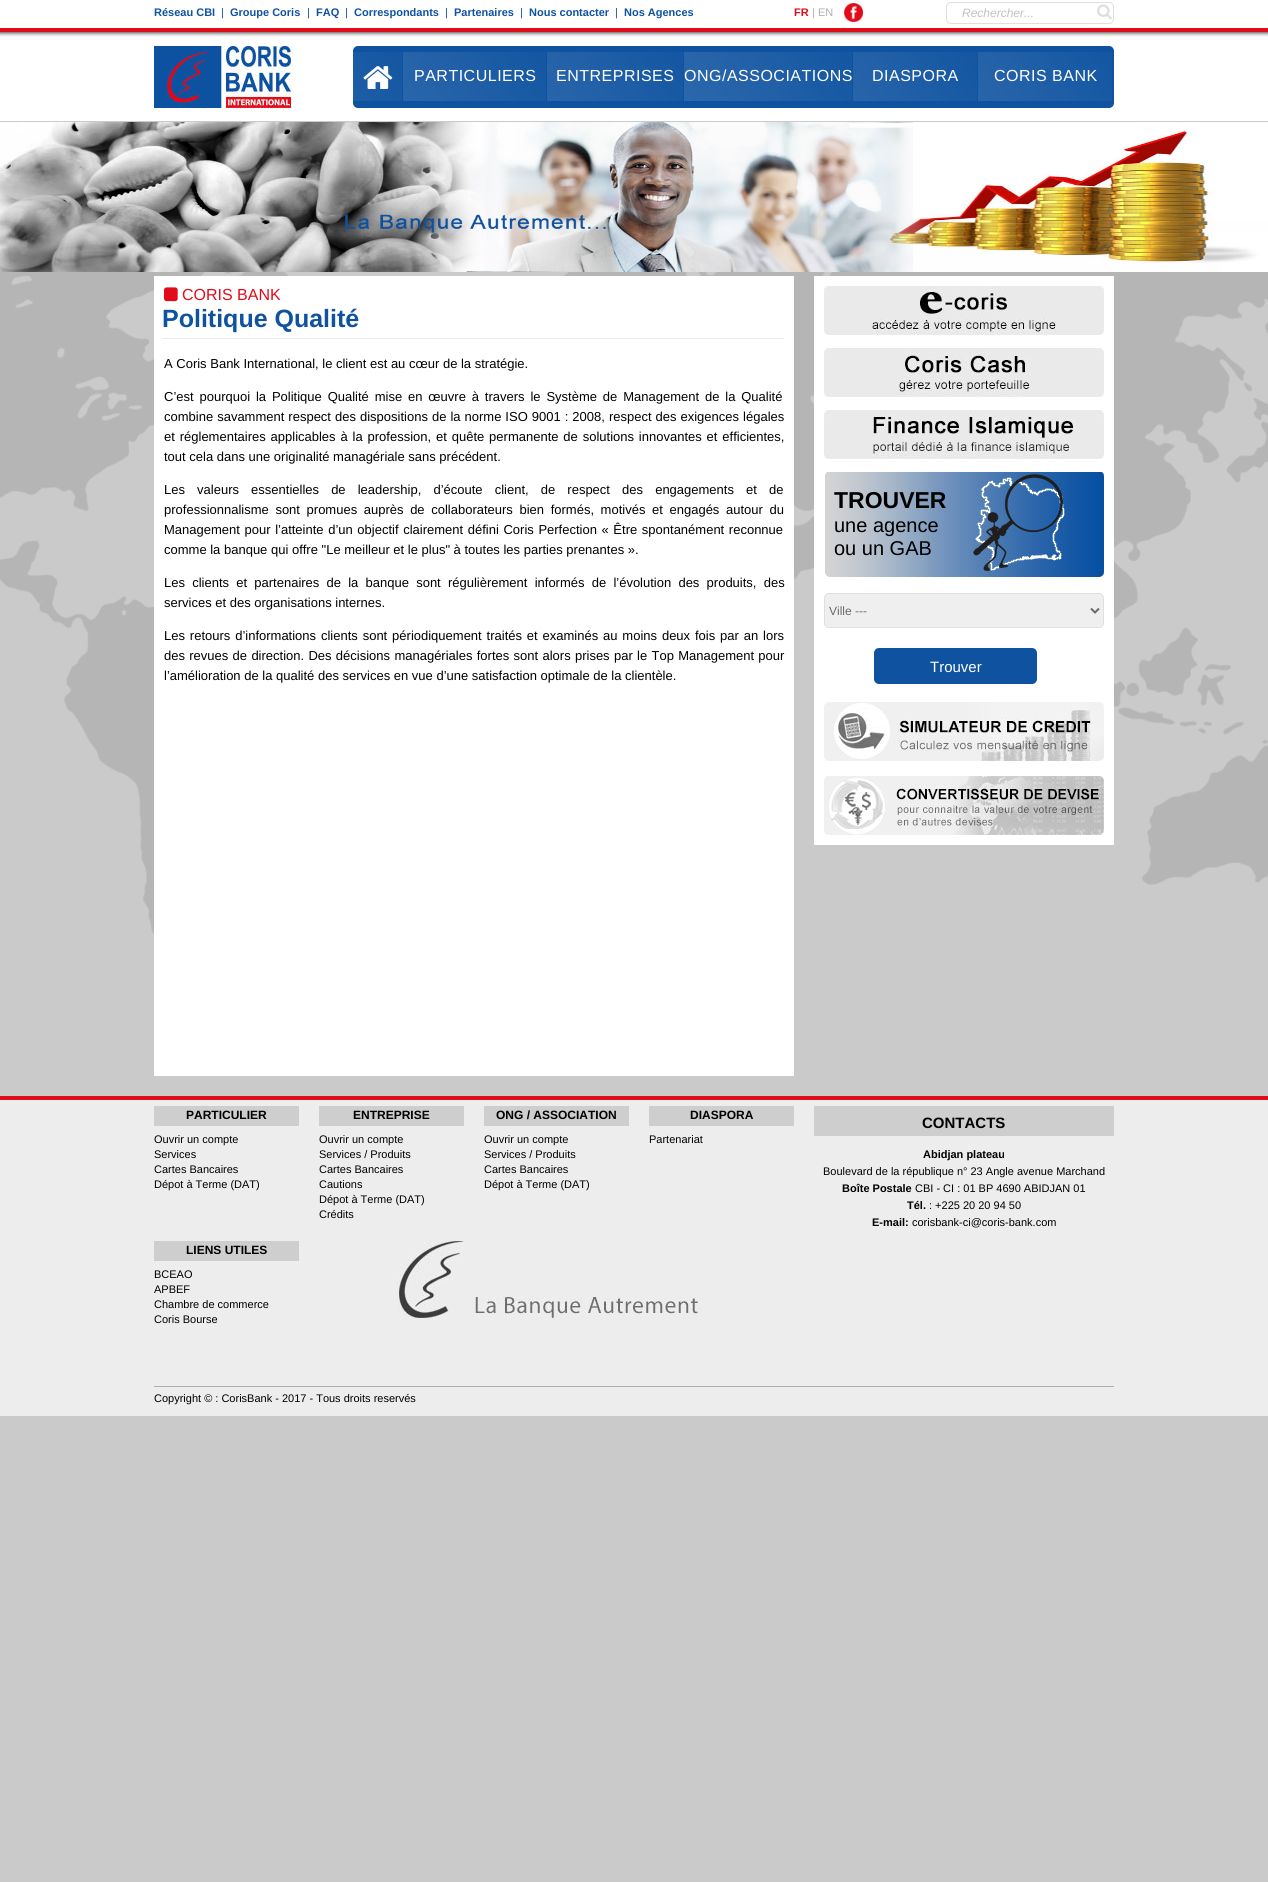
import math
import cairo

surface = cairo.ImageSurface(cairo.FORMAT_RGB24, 1268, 1882)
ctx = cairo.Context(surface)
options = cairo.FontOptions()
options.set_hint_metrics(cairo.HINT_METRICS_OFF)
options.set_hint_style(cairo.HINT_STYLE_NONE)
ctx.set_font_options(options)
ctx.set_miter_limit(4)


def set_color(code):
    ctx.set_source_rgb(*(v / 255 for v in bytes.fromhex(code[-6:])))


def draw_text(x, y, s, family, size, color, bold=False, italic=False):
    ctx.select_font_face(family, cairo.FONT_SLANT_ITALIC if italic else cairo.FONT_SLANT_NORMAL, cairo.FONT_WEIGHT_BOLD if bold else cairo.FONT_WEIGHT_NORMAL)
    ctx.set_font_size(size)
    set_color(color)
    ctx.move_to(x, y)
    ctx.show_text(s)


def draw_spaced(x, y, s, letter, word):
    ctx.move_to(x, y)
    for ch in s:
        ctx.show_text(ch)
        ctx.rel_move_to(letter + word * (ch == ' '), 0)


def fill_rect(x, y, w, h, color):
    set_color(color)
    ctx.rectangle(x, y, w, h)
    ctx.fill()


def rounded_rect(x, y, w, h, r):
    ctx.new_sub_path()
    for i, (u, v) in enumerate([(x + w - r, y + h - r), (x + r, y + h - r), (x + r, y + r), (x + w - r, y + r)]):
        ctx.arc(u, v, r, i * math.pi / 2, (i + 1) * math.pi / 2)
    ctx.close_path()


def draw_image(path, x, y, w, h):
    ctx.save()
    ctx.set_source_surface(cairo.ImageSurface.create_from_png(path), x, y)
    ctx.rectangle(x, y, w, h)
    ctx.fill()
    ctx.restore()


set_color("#cacaca")
ctx.paint()
draw_image("assets/img1.png", 0, 0, 1268, 1006)
draw_text(154, 16, "Réseau CBI", "Liberation Sans", 11, "#0e52a0", bold=True)
draw_text(221, 16, "|", "Liberation Sans", 11, "#0e52a0")
draw_text(230, 16, "Groupe Coris", "Liberation Sans", 11, "#0e52a0", bold=True)
draw_text(307, 16, "|", "Liberation Sans", 11, "#0e52a0")
draw_text(316, 16, "FAQ", "Liberation Sans", 11, "#0e52a0", bold=True)
draw_text(345, 16, "|", "Liberation Sans", 11, "#0e52a0")
draw_text(354, 16, "Correspondants", "Liberation Sans", 11, "#0e52a0", bold=True)
draw_text(445, 16, "|", "Liberation Sans", 11, "#0e52a0")
draw_text(454, 16, "Partenaires", "Liberation Sans", 11, "#0e52a0", bold=True)
draw_text(520, 16, "|", "Liberation Sans", 11, "#0e52a0")
draw_text(529, 16, "Nous contacter", "Liberation Sans", 11, "#0e52a0", bold=True)
draw_text(615, 16, "|", "Liberation Sans", 11, "#0e52a0")
draw_text(624, 16, "Nos Agences", "Liberation Sans", 11, "#0e52a0", bold=True)
draw_text(794, 16, "FR", "Liberation Sans", 11, "#e10c1a", bold=True)
draw_text(812, 16, "| EN", "Liberation Sans", 11, "#b0b0b0")
draw_image("assets/img2.png", 844, 3, 19, 19)
rounded_rect(946.5, 2.5, 167, 21, 4.5)
set_color("#dfdfdf")
ctx.set_line_width(1)
ctx.stroke()
draw_text(962, 17, "Rechercher...", "Liberation Sans", 12, "#c2c0c0", italic=True)
draw_image("assets/img3.png", 1097, 4, 15, 16)
draw_image("assets/img4.png", 154, 46, 139, 62)
set_color("#0e52a0")
rounded_rect(353, 46, 761, 62, 5)
ctx.fill()
draw_image("assets/img5.png", 353, 52, 49, 49)
draw_image("assets/img6.png", 363, 66, 30, 23)
draw_image("assets/img7.png", 403, 52, 143, 49)
ctx.select_font_face("Liberation Sans")
ctx.set_font_size(16)
set_color("#ffffff")
draw_spaced(414, 81, "PARTICULIERS", 0.5, 0)
draw_image("assets/img8.png", 547, 52, 136, 49)
draw_spaced(556, 81, "ENTREPRISES", 0.5, 0)
draw_image("assets/img9.png", 684, 52, 168, 49)
draw_spaced(684, 81, "ONG/ASSOCIATIONS", 0.5, 0)
draw_image("assets/img10.png", 853, 52, 124, 49)
draw_spaced(872, 81, "DIASPORA", 0.5, 0)
draw_image("assets/img11.png", 978, 52, 134, 49)
draw_spaced(994, 81, "CORIS BANK", 0.5, 0)
draw_image("assets/img12.png", 0, 122, 1268, 150)
fill_rect(154, 276, 640, 800, "#ffffff")
draw_image("assets/img13.png", 164, 287, 14, 15)
draw_text(182, 300, "CORIS BANK", "Liberation Sans", 16, "#e10c1a")
fill_rect(162, 338, 622, 1, "#eaeaea")
draw_text(162, 327, "Politique Qualité", "Liberation Sans", 25, "#0e52a0", bold=True)
draw_text(164, 368, "A Coris Bank International, le client est au cœur de la stratégie.", "Liberation Sans", 13, "#000000")
draw_spaced(164, 401, "C’est pourquoi la Politique Qualité mise en œuvre à travers le Système de Management de la Qualité", 0, 2.25)
draw_spaced(164, 421, "combine savamment respect des dispositions de la norme ISO 9001 : 2008, respect des exigences légales", 0, 0.4)
draw_spaced(164, 441, "et réglementaires applicables à la profession, et quête permanente de solutions innovantes et efficientes,", 0, 1.25)
draw_text(164, 461, "tout cela dans une originalité managériale sans précédent.", "Liberation Sans", 13, "#000000")
draw_spaced(164, 494, "Les valeurs essentielles de leadership, d’écoute client, de respect des engagements et de", 0, 8.5)
draw_spaced(164, 514, "professionnalisme sont promues auprès de collaborateurs bien formés, motivés et engagés autour du", 0, 3)
draw_spaced(164, 534, "Management pour l’atteinte d’un objectif clairement défini Coris Perfection « Être spontanément reconnue", 0, 1)
draw_text(164, 554, "comme la banque qui offre \"Le meilleur et le plus\" à toutes les parties prenantes ».", "Liberation Sans", 13, "#000000")
draw_spaced(164, 587, "Les clients et partenaires de la banque sont régulièrement informés de l’évolution des produits, des", 0, 3.6)
draw_text(164, 607, "services et des organisations internes.", "Liberation Sans", 13, "#000000")
draw_spaced(164, 640, "Les retours d’informations clients sont périodiquement traités et examinés au moins deux fois par an lors", 0, 1.25)
draw_spaced(164, 660, "des revues de direction. Des décisions managériales fortes sont alors prises par le Top Management pour", 0, 0.7)
draw_text(164, 680, "l’amélioration de la qualité des services en vue d’une satisfaction optimale de la clientèle.", "Liberation Sans", 13, "#000000")
fill_rect(814, 276, 300, 569, "#ffffff")
draw_image("assets/img14.png", 824, 286, 280, 49)
draw_image("assets/img15.png", 824, 348, 280, 49)
draw_image("assets/img16.png", 824, 410, 280, 49)
draw_image("assets/img17.png", 825, 472, 279, 106)
draw_text(834, 508, "TROUVER", "Liberation Sans", 23, "#000000", bold=True)
draw_text(834, 532, "une agence", "Liberation Sans", 20, "#000000")
draw_text(834, 555, "ou un GAB", "Liberation Sans", 20, "#000000")
set_color("#efefef")
rounded_rect(824.5, 593.5, 279, 34, 4.5)
ctx.fill_preserve()
set_color("#dfdfdf")
ctx.stroke()
ctx.new_path()
ctx.move_to(1091, 608.5)
ctx.line_to(1095, 612.5)
ctx.line_to(1099, 608.5)
set_color("#696969")
ctx.set_line_width(2)
ctx.stroke()
draw_text(829, 615, "Ville ---", "Liberation Sans", 12, "#696969")
set_color("#0e52a0")
rounded_rect(874, 648, 163, 36, 5)
ctx.fill()
draw_text(930, 672, "Trouver", "Liberation Sans", 15, "#ffffff")
draw_image("assets/img18.png", 824, 702, 280, 59)
draw_image("assets/img19.png", 824, 776, 280, 59)
draw_image("assets/img20.png", 0, 1096, 1268, 320)
fill_rect(154, 1106, 145, 20, "#cecece")
draw_text(186, 1119, "PARTICULIER", "Liberation Sans", 12, "#000000", bold=True)
draw_text(154, 1143, "Ouvrir un compte", "Liberation Sans", 11, "#000000")
draw_text(154, 1158, "Services", "Liberation Sans", 11, "#000000")
draw_text(154, 1173, "Cartes Bancaires", "Liberation Sans", 11, "#000000")
draw_text(154, 1188, "Dépot à Terme (DAT)", "Liberation Sans", 11, "#000000")
fill_rect(319, 1106, 145, 20, "#cecece")
draw_text(353, 1119, "ENTREPRISE", "Liberation Sans", 12, "#000000", bold=True)
draw_text(319, 1143, "Ouvrir un compte", "Liberation Sans", 11, "#000000")
draw_text(319, 1158, "Services / Produits", "Liberation Sans", 11, "#000000")
draw_text(319, 1173, "Cartes Bancaires", "Liberation Sans", 11, "#000000")
draw_text(319, 1188, "Cautions", "Liberation Sans", 11, "#000000")
draw_text(319, 1203, "Dépot à Terme (DAT)", "Liberation Sans", 11, "#000000")
draw_text(319, 1218, "Crédits", "Liberation Sans", 11, "#000000")
fill_rect(484, 1106, 145, 20, "#cecece")
draw_text(496, 1119, "ONG / ASSOCIATION", "Liberation Sans", 12, "#000000", bold=True)
draw_text(484, 1143, "Ouvrir un compte", "Liberation Sans", 11, "#000000")
draw_text(484, 1158, "Services / Produits", "Liberation Sans", 11, "#000000")
draw_text(484, 1173, "Cartes Bancaires", "Liberation Sans", 11, "#000000")
draw_text(484, 1188, "Dépot à Terme (DAT)", "Liberation Sans", 11, "#000000")
fill_rect(649, 1106, 145, 20, "#cecece")
draw_text(690, 1119, "DIASPORA", "Liberation Sans", 12, "#000000", bold=True)
draw_text(649, 1143, "Partenariat", "Liberation Sans", 11, "#000000")
fill_rect(154, 1241, 145, 20, "#cecece")
draw_text(186, 1254, "LIENS UTILES", "Liberation Sans", 12, "#000000", bold=True)
draw_text(154, 1278, "BCEAO", "Liberation Sans", 11, "#000000")
draw_text(154, 1293, "APBEF", "Liberation Sans", 11, "#000000")
draw_text(154, 1308, "Chambre de commerce", "Liberation Sans", 11, "#000000")
draw_text(154, 1323, "Coris Bourse", "Liberation Sans", 11, "#000000")
draw_image("assets/img21.png", 399, 1241, 300, 77)
fill_rect(814, 1106, 300, 30, "#cecece")
draw_text(922, 1128, "CONTACTS", "Liberation Sans", 15, "#000000", bold=True)
draw_text(923, 1158, "Abidjan plateau", "Liberation Sans", 11, "#000000", bold=True)
draw_text(823, 1175, "Boulevard de la république n° 23 Angle avenue Marchand", "Liberation Sans", 11, "#000000")
draw_text(842, 1192, "Boîte Postale", "Liberation Sans", 11, "#000000", bold=True)
draw_text(915, 1192, "CBI - CI : 01 BP 4690 ABIDJAN 01", "Liberation Sans", 11, "#000000")
draw_text(907, 1209, "Tél.", "Liberation Sans", 11, "#000000", bold=True)
draw_text(929, 1209, ": +225 20 20 94 50", "Liberation Sans", 11, "#000000")
draw_text(872, 1226, "E-mail:", "Liberation Sans", 11, "#000000", bold=True)
draw_text(912, 1226, "corisbank-ci@coris-bank.com", "Liberation Sans", 11, "#000000")
fill_rect(154, 1386, 960, 1, "#afafaf")
draw_text(154, 1402, "Copyright © : CorisBank - 2017 - Tous droits reservés", "Liberation Sans", 11, "#000000")
surface.write_to_png("output.png")
